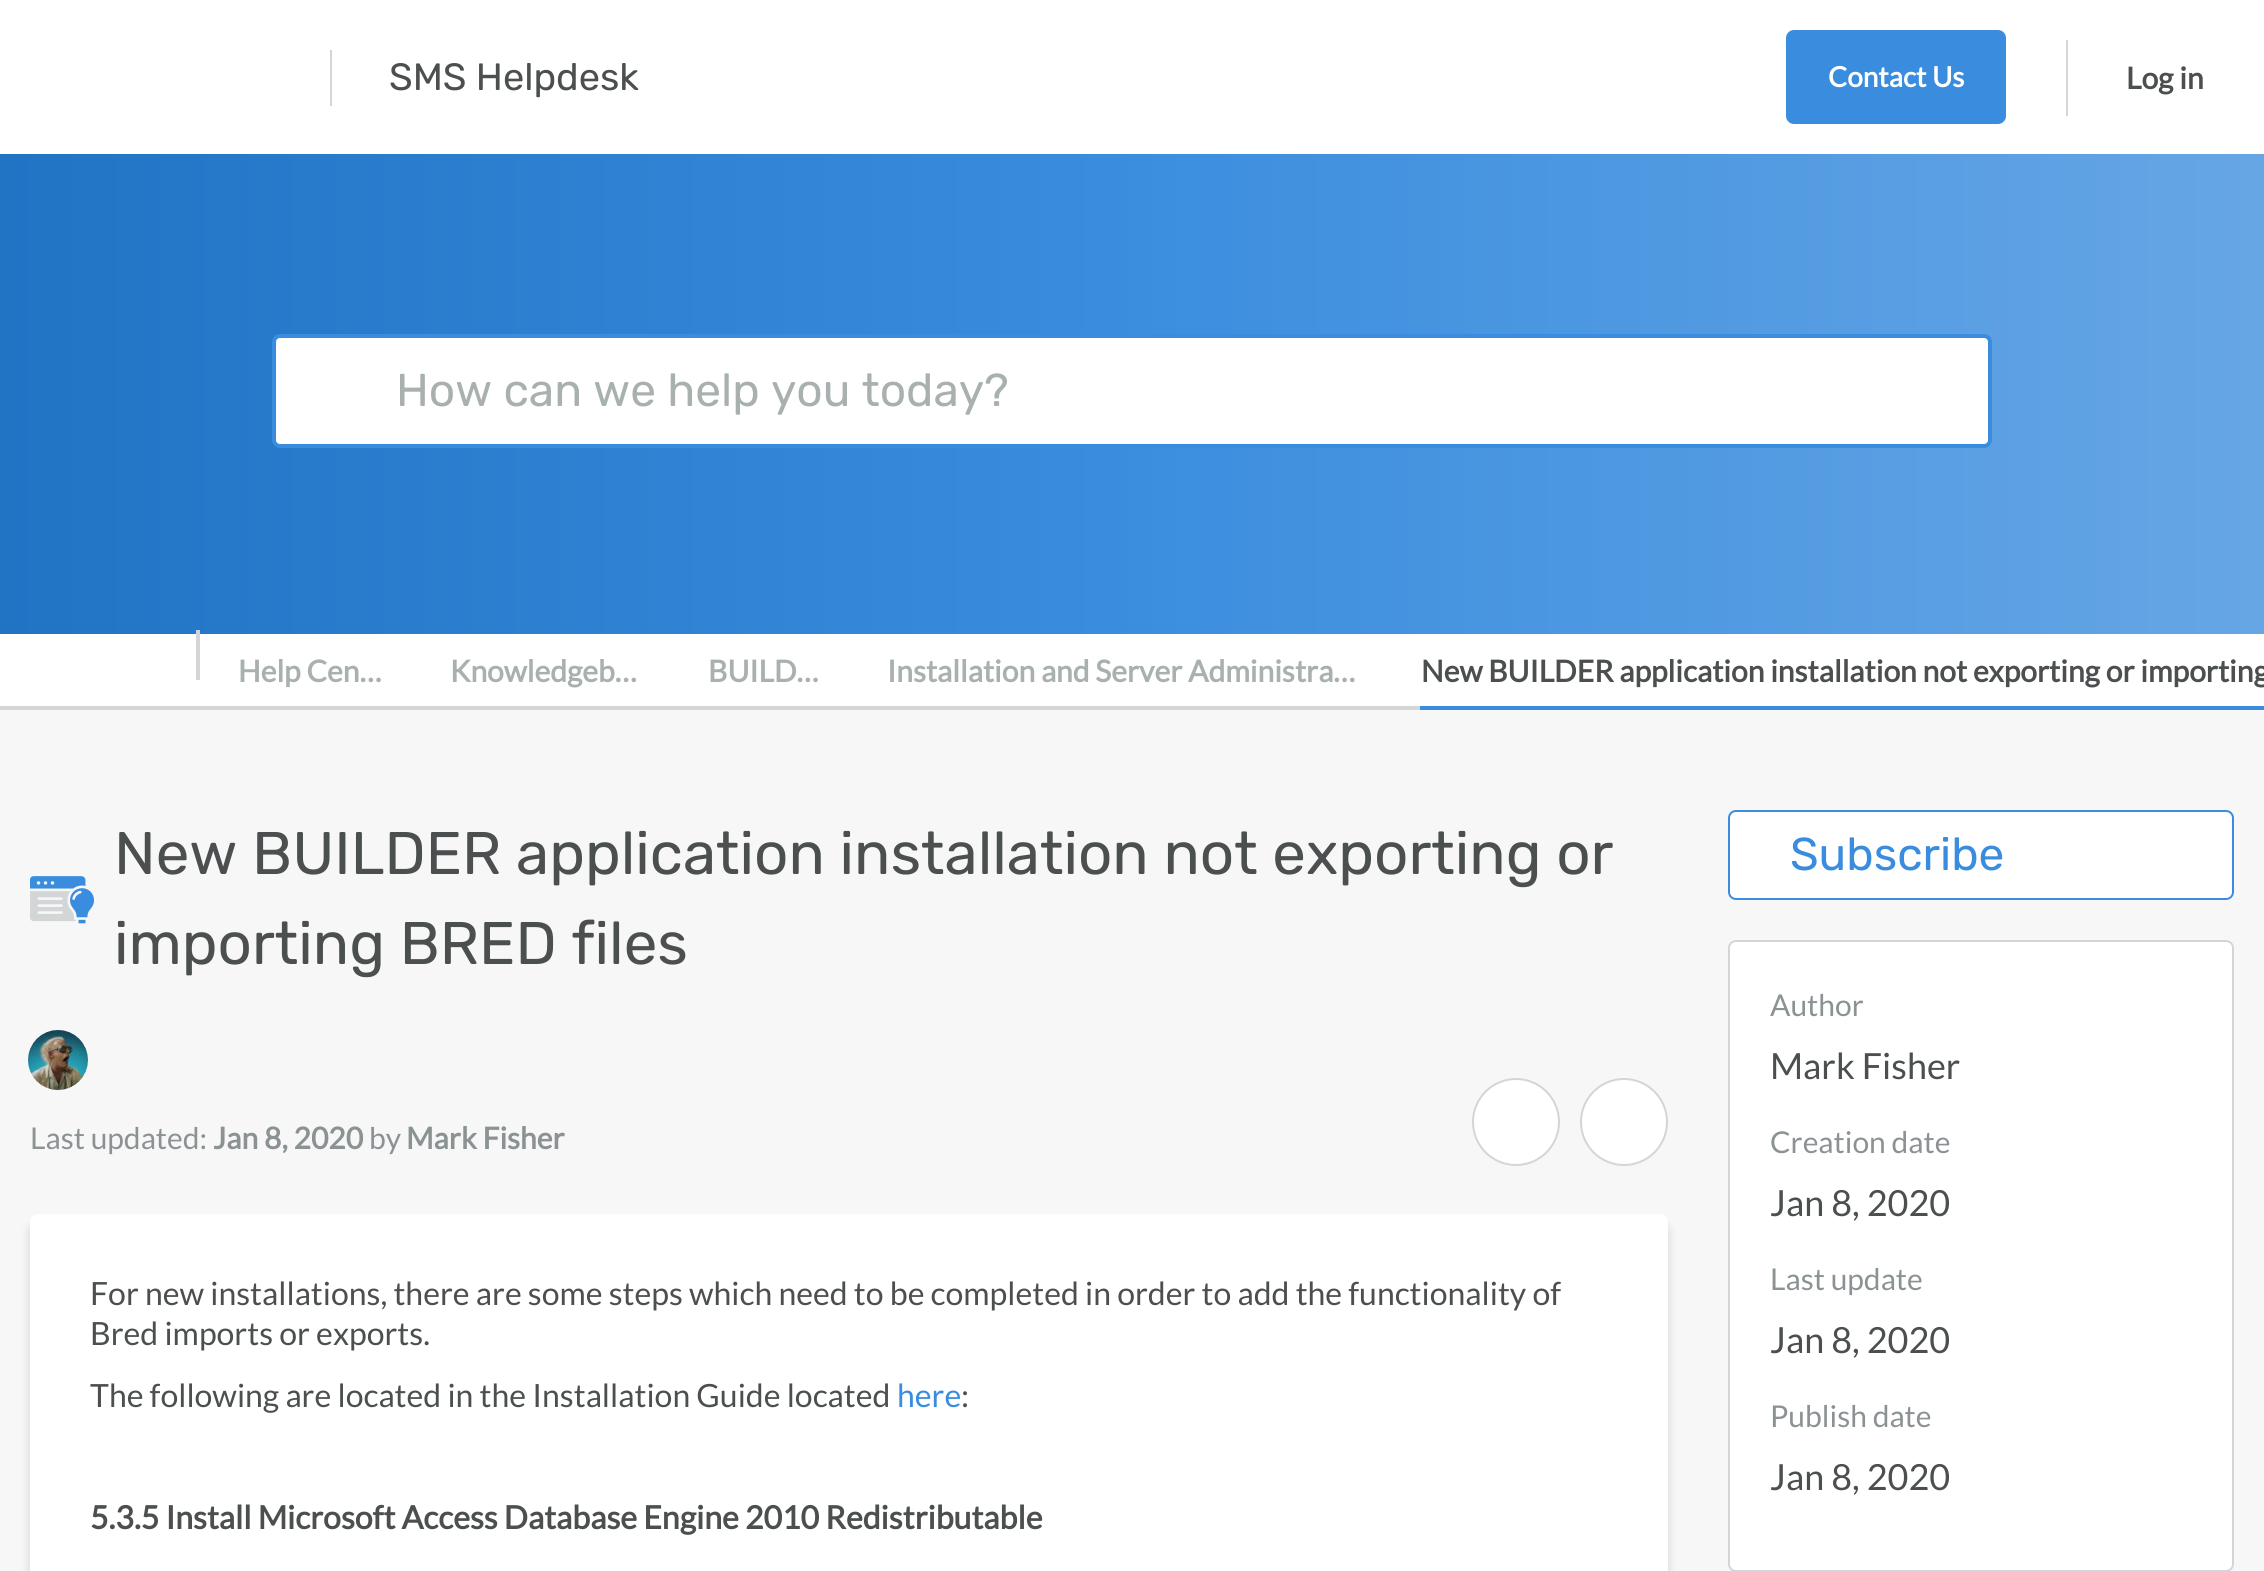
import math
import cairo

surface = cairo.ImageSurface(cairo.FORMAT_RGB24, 2264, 1571)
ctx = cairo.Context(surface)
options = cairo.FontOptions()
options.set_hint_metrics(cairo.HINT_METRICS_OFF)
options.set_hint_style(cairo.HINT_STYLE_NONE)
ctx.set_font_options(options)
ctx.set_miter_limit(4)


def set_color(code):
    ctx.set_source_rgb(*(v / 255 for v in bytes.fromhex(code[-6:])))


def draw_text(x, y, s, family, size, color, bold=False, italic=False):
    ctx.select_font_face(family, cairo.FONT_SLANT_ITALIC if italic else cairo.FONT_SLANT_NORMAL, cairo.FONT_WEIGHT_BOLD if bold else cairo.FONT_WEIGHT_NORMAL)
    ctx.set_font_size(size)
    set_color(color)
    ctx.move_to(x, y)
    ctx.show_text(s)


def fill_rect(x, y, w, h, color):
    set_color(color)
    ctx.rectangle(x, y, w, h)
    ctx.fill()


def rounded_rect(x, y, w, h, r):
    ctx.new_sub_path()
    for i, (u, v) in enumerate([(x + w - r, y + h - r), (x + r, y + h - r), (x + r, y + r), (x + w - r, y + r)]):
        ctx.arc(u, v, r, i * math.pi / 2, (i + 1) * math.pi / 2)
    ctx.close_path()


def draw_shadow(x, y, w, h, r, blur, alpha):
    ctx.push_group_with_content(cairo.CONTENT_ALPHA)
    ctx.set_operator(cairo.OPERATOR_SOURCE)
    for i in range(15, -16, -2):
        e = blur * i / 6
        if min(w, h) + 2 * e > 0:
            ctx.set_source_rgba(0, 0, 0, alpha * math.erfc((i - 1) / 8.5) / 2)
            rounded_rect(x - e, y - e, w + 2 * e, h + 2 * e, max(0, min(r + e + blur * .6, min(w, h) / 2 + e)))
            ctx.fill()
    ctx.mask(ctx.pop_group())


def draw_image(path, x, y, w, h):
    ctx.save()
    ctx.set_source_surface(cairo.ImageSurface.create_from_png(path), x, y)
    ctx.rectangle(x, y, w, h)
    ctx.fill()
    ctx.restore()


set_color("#ffffff")
ctx.paint()
fill_rect(330, 50, 2, 56, "#d3d6d7")
draw_text(389, 90, "SMS Helpdesk", "Rubik Light", 38, "#4c4f50")
set_color("#3a8dde")
rounded_rect(1787, 31, 218, 92, 7)
ctx.fill_preserve()
ctx.stroke()
draw_text(1828, 87, "Contact Us", "Lato", 28, "#ffffff", bold=True)
fill_rect(2066, 40, 2, 76, "#d3d6d7")
draw_text(2126, 89, "Log in", "Lato", 30, "#4c4f50", bold=True)
gradient = cairo.LinearGradient(0, 394, 2264, 394)
gradient.add_color_stop_rgba(0, 0.129, 0.451, 0.769, 1)
gradient.add_color_stop_rgba(0.49, 0.227, 0.553, 0.871, 1)
gradient.add_color_stop_rgba(1, 0.4, 0.651, 0.898, 1)
ctx.set_source(gradient)
ctx.rectangle(0, 154, 2264, 480)
ctx.fill()
set_color("#ffffff")
rounded_rect(274, 336, 1716, 110, 6)
ctx.fill_preserve()
set_color("#3a8dde")
ctx.set_line_width(4)
ctx.stroke()
draw_text(396, 406, "How can we help you today?", "Rubik Light", 46, "#a9b0b0")
fill_rect(0, 706, 1420, 4, "#d3d6d7")
fill_rect(196, 630, 4, 50, "#d3d6d7")
draw_text(238, 682, "Help Cen…", "Lato", 30, "#a9b0b0", bold=True)
draw_text(450, 682, "Knowledgeb…", "Lato", 30, "#a9b0b0", bold=True)
draw_text(708, 682, "BUILD…", "Lato", 30, "#a9b0b0", bold=True)
draw_text(887, 682, "Installation and Server Administra…", "Lato", 30, "#a9b0b0", bold=True)
draw_text(1421, 682, "New BUILDER application installation not exporting or importing", "Lato", 30, "#4c4f50", bold=True)
fill_rect(1420, 706, 844, 4, "#3a8dde")
fill_rect(0, 710, 2264, 861, "#f7f7f7")
draw_image("assets/img1.png", 30, 876, 64, 48)
draw_text(114, 874, "New BUILDER application installation not exporting or", "Rubik Light", 60, "#4c4f50")
draw_text(114, 964, "importing BRED files", "Rubik Light", 60, "#4c4f50")
draw_image("assets/img2.png", 28, 1030, 60, 60)
draw_text(30, 1149, "Last updated:", "Lato", 30, "#8b9293")
draw_text(213, 1149, "Jan 8, 2020", "Lato", 30, "#8b9293", bold=True)
draw_text(369, 1149, "by", "Lato", 30, "#8b9293")
draw_text(406, 1149, "Mark Fisher", "Lato", 30, "#8b9293", bold=True)
set_color("#ffffff")
ctx.new_path()
ctx.arc(1516, 1122, 43, 0, 2 * math.pi)
ctx.fill_preserve()
set_color("#d3d6d7")
ctx.set_line_width(2)
ctx.stroke()
set_color("#ffffff")
ctx.arc(1624, 1122, 43, 0, 2 * math.pi)
ctx.fill_preserve()
set_color("#d3d6d7")
ctx.stroke()
set_color("#000000")
draw_shadow(30, 1224, 1638, 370, 8, 5, 0.15)
set_color("#ffffff")
rounded_rect(30, 1214, 1638, 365, 8)
ctx.fill()
draw_text(90, 1305, "For new installations, there are some steps which need to be completed in order to add the functionality of", "Lato", 32, "#4c4f50")
draw_text(90, 1345, "Bred imports or exports.", "Lato", 32, "#4c4f50")
draw_text(90, 1407, "The following are located in the Installation Guide located", "Lato", 32, "#4c4f50")
draw_text(897, 1407, "here", "Lato", 32, "#3a8dde")
draw_text(961, 1407, ":", "Lato", 32, "#4c4f50")
draw_text(90, 1529, "5.3.5 Install Microsoft Access Database Engine 2010 Redistributable", "Lato", 32, "#4c4f50", bold=True)
set_color("#ffffff")
rounded_rect(1729, 811, 504, 88, 7)
ctx.fill_preserve()
set_color("#3a8dde")
ctx.stroke()
draw_text(1790, 870, "Subscribe", "Rubik Light", 46, "#3a8dde")
set_color("#ffffff")
rounded_rect(1729, 941, 504, 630, 7)
ctx.fill_preserve()
set_color("#d3d6d7")
ctx.stroke()
draw_text(1770, 1016, "Author", "Lato", 30, "#8b9293")
draw_text(1770, 1079, "Mark Fisher", "Lato", 36, "#4c4f50")
draw_text(1770, 1153, "Creation date", "Lato", 30, "#8b9293")
draw_text(1770, 1216, "Jan 8, 2020", "Lato", 36, "#4c4f50")
draw_text(1770, 1290, "Last update", "Lato", 30, "#8b9293")
draw_text(1770, 1353, "Jan 8, 2020", "Lato", 36, "#4c4f50")
draw_text(1770, 1427, "Publish date", "Lato", 30, "#8b9293")
draw_text(1770, 1490, "Jan 8, 2020", "Lato", 36, "#4c4f50")
surface.write_to_png("output.png")
